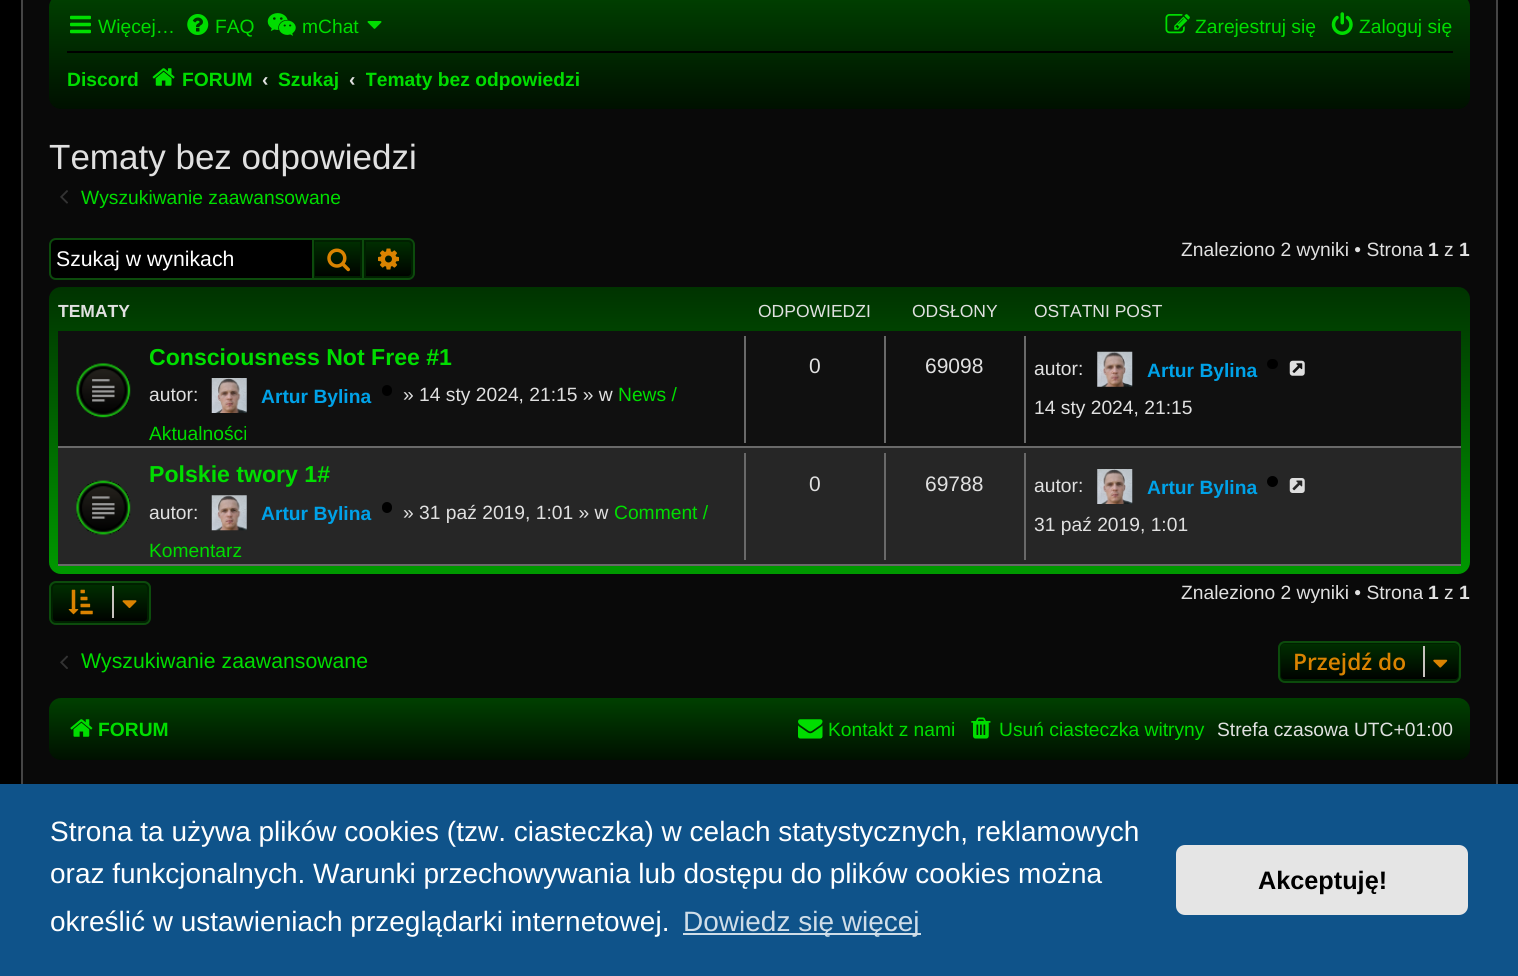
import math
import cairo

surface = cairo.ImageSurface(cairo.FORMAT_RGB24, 1518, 976)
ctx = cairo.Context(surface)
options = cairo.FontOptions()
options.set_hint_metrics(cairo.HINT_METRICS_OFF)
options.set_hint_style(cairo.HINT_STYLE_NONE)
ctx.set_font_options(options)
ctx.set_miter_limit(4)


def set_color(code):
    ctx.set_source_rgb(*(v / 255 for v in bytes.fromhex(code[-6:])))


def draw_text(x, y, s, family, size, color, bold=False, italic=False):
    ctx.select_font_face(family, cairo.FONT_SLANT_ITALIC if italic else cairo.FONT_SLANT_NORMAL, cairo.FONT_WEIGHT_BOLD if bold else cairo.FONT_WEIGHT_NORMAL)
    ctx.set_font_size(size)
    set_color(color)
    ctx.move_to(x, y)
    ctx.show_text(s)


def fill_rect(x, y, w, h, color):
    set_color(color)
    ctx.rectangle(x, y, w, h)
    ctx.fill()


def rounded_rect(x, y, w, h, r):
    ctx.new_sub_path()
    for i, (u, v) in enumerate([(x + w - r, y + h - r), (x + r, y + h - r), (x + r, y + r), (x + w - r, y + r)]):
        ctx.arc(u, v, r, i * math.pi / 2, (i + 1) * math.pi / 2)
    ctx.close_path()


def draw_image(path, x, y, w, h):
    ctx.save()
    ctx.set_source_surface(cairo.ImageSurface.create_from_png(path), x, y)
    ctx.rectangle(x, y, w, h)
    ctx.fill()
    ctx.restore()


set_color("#000000")
ctx.paint()
fill_rect(23, 0, 1473, 784, "#090909")
ctx.rectangle(22, -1, 1475, 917)
set_color("#454545")
ctx.stroke()
gradient = cairo.LinearGradient(760, -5.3, 760, 109)
gradient.add_color_stop_rgba(0, 0, 0.251, 0, 1)
gradient.add_color_stop_rgba(1, 0, 0.063, 0, 1)
ctx.set_source(gradient)
rounded_rect(49, -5, 1421, 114, 12)
ctx.fill()
draw_image("assets/img1.png", 70, 15, 21, 19)
draw_text(98, 33, "Więcej…", "Liberation Sans", 19.25, "#00dd00")
draw_image("assets/img2.png", 187, 14, 22, 21)
draw_text(215, 33, "FAQ", "Liberation Sans", 19.25, "#00dd00")
draw_image("assets/img3.png", 267, 13, 29, 23)
draw_text(302, 33, "mChat", "Liberation Sans", 19.25, "#00dd00")
draw_image("assets/img4.png", 367, 21, 15, 8)
draw_image("assets/img5.png", 1165, 14, 25, 20)
draw_text(1195, 33, "Zarejestruj się", "Liberation Sans", 19.25, "#00dd00")
draw_image("assets/img6.png", 1331, 12, 22, 23)
draw_text(1359, 33, "Zaloguj się", "Liberation Sans", 19.25, "#00dd00")
fill_rect(67, 51, 1386, 2, "#000000")
draw_text(67, 86, "Discord", "Liberation Sans", 19.25, "#00dd00", bold=True)
draw_image("assets/img7.png", 152, 68, 23, 18)
draw_text(182, 86, "FORUM", "Liberation Sans", 19.25, "#00dd00", bold=True)
draw_text(262, 86, "‹", "Liberation Sans", 19.25, "#e0e0e0", bold=True)
draw_text(278, 86, "Szukaj", "Liberation Sans", 19.25, "#00dd00", bold=True)
draw_text(349, 86, "‹", "Liberation Sans", 19.25, "#e0e0e0", bold=True)
ctx.save()
ctx.rectangle(366, 58, 213, 42)
ctx.clip()
draw_text(365, 86, "Tematy bez odpowiedzi", "Liberation Sans", 19.25, "#00dd00", bold=True)
ctx.restore()
draw_text(49, 169, "Tematy bez odpowiedzi", "Liberation Sans", 35, "#e0e0e0")
draw_image("assets/img8.png", 60, 190, 8, 14)
draw_text(81, 204, "Wyszukiwanie zaawansowane", "Liberation Sans", 19.25, "#00dd00")
set_color("#000000")
ctx.new_path()
ctx.move_to(56, 240)
ctx.line_to(312, 240)
ctx.line_to(312, 278)
ctx.line_to(56, 278)
ctx.curve_to(53, 278, 51, 276, 51, 273)
ctx.line_to(51, 245)
ctx.curve_to(51, 242, 53, 240, 56, 240)
ctx.close_path()
ctx.fill()
set_color("#0c4b0c")
ctx.set_fill_rule(cairo.FILL_RULE_EVEN_ODD)
ctx.new_path()
ctx.move_to(56, 238)
ctx.line_to(312, 238)
ctx.line_to(312, 280)
ctx.line_to(56, 280)
ctx.curve_to(52, 280, 49, 277, 49, 273)
ctx.line_to(49, 245)
ctx.curve_to(49, 241, 52, 238, 56, 238)
ctx.close_path()
ctx.move_to(56, 240)
ctx.line_to(312, 240)
ctx.line_to(312, 278)
ctx.line_to(56, 278)
ctx.curve_to(53, 278, 51, 276, 51, 273)
ctx.line_to(51, 245)
ctx.curve_to(51, 242, 53, 240, 56, 240)
ctx.close_path()
ctx.fill()
draw_text(56, 266, "Szukaj w wynikach", "Liberation Sans", 21.25, "#ffffff")
gradient = cairo.LinearGradient(338, 240, 338, 278)
gradient.add_color_stop_rgba(0, 0, 0.188, 0, 1)
gradient.add_color_stop_rgba(1, 0, 0, 0, 1)
ctx.set_source(gradient)
ctx.rectangle(315, 242, 45, 34)
ctx.fill()
ctx.rectangle(314, 241, 47, 36)
set_color("#002000")
ctx.stroke()
ctx.rectangle(313, 239, 50, 40)
set_color("#0c4b0c")
ctx.stroke()
draw_image("assets/img9.png", 327, 248, 23, 24)
gradient = cairo.LinearGradient(389, 240, 389, 278)
gradient.add_color_stop_rgba(0, 0, 0.188, 0, 1)
gradient.add_color_stop_rgba(1, 0, 0, 0, 1)
ctx.set_source(gradient)
ctx.new_path()
ctx.move_to(365, 241)
ctx.line_to(408, 241)
ctx.curve_to(410, 241, 412, 243, 412, 245)
ctx.line_to(412, 273)
ctx.curve_to(412, 275, 410, 277, 408, 277)
ctx.line_to(365, 277)
ctx.close_path()
ctx.fill_preserve()
set_color("#002000")
ctx.stroke()
set_color("#0c4b0c")
ctx.new_path()
ctx.move_to(364, 238)
ctx.line_to(408, 238)
ctx.curve_to(412, 238, 415, 241, 415, 245)
ctx.line_to(415, 273)
ctx.curve_to(415, 277, 412, 280, 408, 280)
ctx.line_to(364, 280)
ctx.close_path()
ctx.move_to(364, 240)
ctx.line_to(408, 240)
ctx.curve_to(411, 240, 413, 242, 413, 245)
ctx.line_to(413, 273)
ctx.curve_to(413, 276, 411, 278, 408, 278)
ctx.line_to(364, 278)
ctx.close_path()
ctx.fill()
draw_image("assets/img10.png", 378, 248, 21, 22)
draw_text(1181, 256, "Znaleziono 2 wyniki • Strona", "Liberation Sans", 19.25, "#e0e0e0")
draw_text(1428, 256, "1", "Liberation Sans", 19.25, "#e0e0e0", bold=True)
draw_text(1444, 256, "z", "Liberation Sans", 19.25, "#e0e0e0")
draw_text(1459, 256, "1", "Liberation Sans", 19.25, "#e0e0e0", bold=True)
gradient = cairo.LinearGradient(760, 287, 760, 574)
gradient.add_color_stop_rgba(0, 0, 0.2, 0, 1)
gradient.add_color_stop_rgba(1, 0, 0.6, 0, 1)
ctx.set_source(gradient)
rounded_rect(49, 287, 1421, 287, 12)
ctx.fill()
draw_text(58, 317, "TEMATY", "Liberation Sans", 17.5, "#e0e0e0", bold=True)
draw_text(758, 317, "ODPOWIEDZI", "Liberation Sans", 17.5, "#e0e0e0")
draw_text(912, 317, "ODSŁONY", "Liberation Sans", 17.5, "#e0e0e0")
draw_text(1034, 317, "OSTATNI POST", "Liberation Sans", 17.5, "#e0e0e0")
fill_rect(58, 331, 1403, 115, "#101010")
fill_rect(58, 446, 1403, 2, "#696969")
draw_image("assets/img11.png", 76, 363, 55, 55)
draw_text(149, 365, "Consciousness Not Free #1", "Liberation Sans", 23.1, "#00dd00", bold=True)
draw_text(149, 401, "autor:", "Liberation Sans", 19.25, "#e0e0e0")
draw_image("assets/img12.png", 211, 378, 36, 35)
draw_text(261, 403, "Artur Bylina", "Liberation Sans", 19.25, "#00a2e8", bold=True)
set_color("#000000")
rounded_rect(382, 385, 10, 11, 5)
ctx.fill()
draw_text(403, 401, "» 14 sty 2024, 21:15 » w", "Liberation Sans", 19.25, "#e0e0e0")
draw_text(618, 401, "News /", "Liberation Sans", 19.25, "#00dd00")
draw_text(149, 440, "Aktualności", "Liberation Sans", 19.25, "#00dd00")
fill_rect(744, 336, 2, 107, "#696969")
draw_text(809, 373, "0", "Liberation Sans", 21, "#e0e0e0")
fill_rect(884, 336, 2, 107, "#696969")
draw_text(925, 373, "69098", "Liberation Sans", 21, "#e0e0e0")
fill_rect(1024, 336, 2, 107, "#696969")
draw_text(1034, 375, "autor:", "Liberation Sans", 19.25, "#e0e0e0")
draw_image("assets/img13.png", 1097, 351, 36, 36)
draw_text(1147, 377, "Artur Bylina", "Liberation Sans", 19.25, "#00a2e8", bold=True)
set_color("#000000")
rounded_rect(1267, 359, 11, 10, 5)
ctx.fill()
draw_image("assets/img14.png", 1289, 360, 16, 16)
draw_text(1034, 414, "14 sty 2024, 21:15", "Liberation Sans", 19.25, "#e0e0e0")
fill_rect(58, 448, 1403, 116, "#262626")
fill_rect(58, 564, 1403, 2, "#696969")
draw_image("assets/img15.png", 76, 480, 55, 55)
draw_text(149, 482, "Polskie twory 1#", "Liberation Sans", 23.1, "#00dd00", bold=True)
draw_text(149, 519, "autor:", "Liberation Sans", 19.25, "#e0e0e0")
draw_image("assets/img16.png", 211, 495, 36, 36)
draw_text(261, 520, "Artur Bylina", "Liberation Sans", 19.25, "#00a2e8", bold=True)
set_color("#000000")
rounded_rect(382, 502, 10, 11, 5)
ctx.fill()
draw_text(403, 519, "» 31 paź 2019, 1:01 » w", "Liberation Sans", 19.25, "#e0e0e0")
draw_text(614, 519, "Comment /", "Liberation Sans", 19.25, "#00dd00")
draw_text(149, 557, "Komentarz", "Liberation Sans", 19.25, "#00dd00")
fill_rect(744, 453, 2, 107, "#696969")
draw_text(809, 491, "0", "Liberation Sans", 21, "#e0e0e0")
fill_rect(884, 453, 2, 107, "#696969")
draw_text(925, 491, "69788", "Liberation Sans", 21, "#e0e0e0")
fill_rect(1024, 453, 2, 107, "#696969")
draw_text(1034, 492, "autor:", "Liberation Sans", 19.25, "#e0e0e0")
draw_image("assets/img17.png", 1097, 469, 36, 35)
draw_text(1147, 494, "Artur Bylina", "Liberation Sans", 19.25, "#00a2e8", bold=True)
set_color("#000000")
ctx.new_path()
ctx.arc(1272.5, 481.5, 5.5, 0, 2 * math.pi)
ctx.fill()
draw_image("assets/img18.png", 1289, 478, 16, 15)
draw_text(1034, 531, "31 paź 2019, 1:01", "Liberation Sans", 19.25, "#e0e0e0")
ctx.save()
ctx.set_fill_rule(cairo.FILL_RULE_WINDING)
rounded_rect(49, 581, 102, 44, 7)
ctx.clip()
gradient = cairo.LinearGradient(100, 583, 100, 623)
gradient.add_color_stop_rgba(0, 0, 0.188, 0, 1)
gradient.add_color_stop_rgba(1, 0, 0, 0, 1)
ctx.set_source(gradient)
ctx.rectangle(49, 583, 102, 40)
ctx.fill()
ctx.restore()
rounded_rect(52, 584, 96, 38, 4)
set_color("#002000")
ctx.stroke()
rounded_rect(50, 582, 100, 42, 6)
set_color("#0c4b0c")
ctx.stroke()
draw_image("assets/img19.png", 68, 589, 25, 26)
fill_rect(112, 586, 2, 32, "#c7c3bf")
draw_image("assets/img20.png", 122, 600, 15, 9)
draw_text(1181, 599, "Znaleziono 2 wyniki • Strona", "Liberation Sans", 19.25, "#e0e0e0")
draw_text(1428, 599, "1", "Liberation Sans", 19.25, "#e0e0e0", bold=True)
draw_text(1444, 599, "z", "Liberation Sans", 19.25, "#e0e0e0")
draw_text(1459, 599, "1", "Liberation Sans", 19.25, "#e0e0e0", bold=True)
draw_image("assets/img21.png", 60, 655, 8, 14)
draw_text(81, 668, "Wyszukiwanie zaawansowane", "Liberation Sans", 21.25, "#00dd00")
ctx.save()
ctx.set_fill_rule(cairo.FILL_RULE_WINDING)
rounded_rect(1278, 641, 183, 42, 7)
ctx.clip()
gradient = cairo.LinearGradient(1369, 642, 1369, 681)
gradient.add_color_stop_rgba(0, 0, 0.188, 0, 1)
gradient.add_color_stop_rgba(1, 0, 0, 0, 1)
ctx.set_source(gradient)
ctx.rectangle(1278, 642, 183, 39)
ctx.fill()
ctx.restore()
rounded_rect(1280, 643, 179, 37, 4)
set_color("#002000")
ctx.stroke()
rounded_rect(1279, 642, 181, 40, 6)
set_color("#0c4b0c")
ctx.stroke()
draw_text(1293, 670, "Przejdź do", "Open Sans SemiBold", 22.75, "#da8301")
fill_rect(1423, 646, 2, 31, "#c7c3bf")
draw_image("assets/img22.png", 1433, 659, 15, 9)
gradient = cairo.LinearGradient(760, 698, 760, 760)
gradient.add_color_stop_rgba(0, 0, 0.251, 0, 1)
gradient.add_color_stop_rgba(1, 0, 0.063, 0, 1)
ctx.set_source(gradient)
rounded_rect(49, 698, 1421, 62, 12)
ctx.fill()
draw_image("assets/img23.png", 70, 719, 23, 18)
draw_text(98, 736, "FORUM", "Liberation Sans", 19.25, "#00dd00", bold=True)
draw_image("assets/img24.png", 798, 719, 25, 20)
draw_text(828, 736, "Kontakt z nami", "Liberation Sans", 19.25, "#00dd00")
draw_image("assets/img25.png", 971, 717, 20, 22)
draw_text(999, 736, "Usuń ciasteczka witryny", "Liberation Sans", 19.25, "#00dd00")
draw_text(1217, 736, "Strefa czasowa UTC+01:00", "Liberation Sans", 19.25, "#e0e0e0")
fill_rect(0, 784, 1518, 192, "#0f538a")
draw_text(50, 841, "Strona ta używa plików cookies (tzw. ciasteczka) w celach statystycznych, reklamowych", "Liberation Sans", 28, "#ffffff")
draw_text(50, 883, "oraz funkcjonalnych. Warunki przechowywania lub dostępu do plików cookies można", "Liberation Sans", 28, "#ffffff")
draw_text(50, 931, "określić w ustawieniach przeglądarki internetowej.", "Liberation Sans", 28, "#ffffff")
fill_rect(683, 933, 238, 2, "#cfdde8")
draw_text(683, 931, "Dowiedz się więcej", "Liberation Sans", 28, "#cfdde8")
set_color("#e5e5e5")
rounded_rect(1176, 845, 292, 70, 9)
ctx.fill()
draw_text(1258, 889, "Akceptuję!", "Liberation Sans", 25.25, "#000000", bold=True)
surface.write_to_png("output.png")
